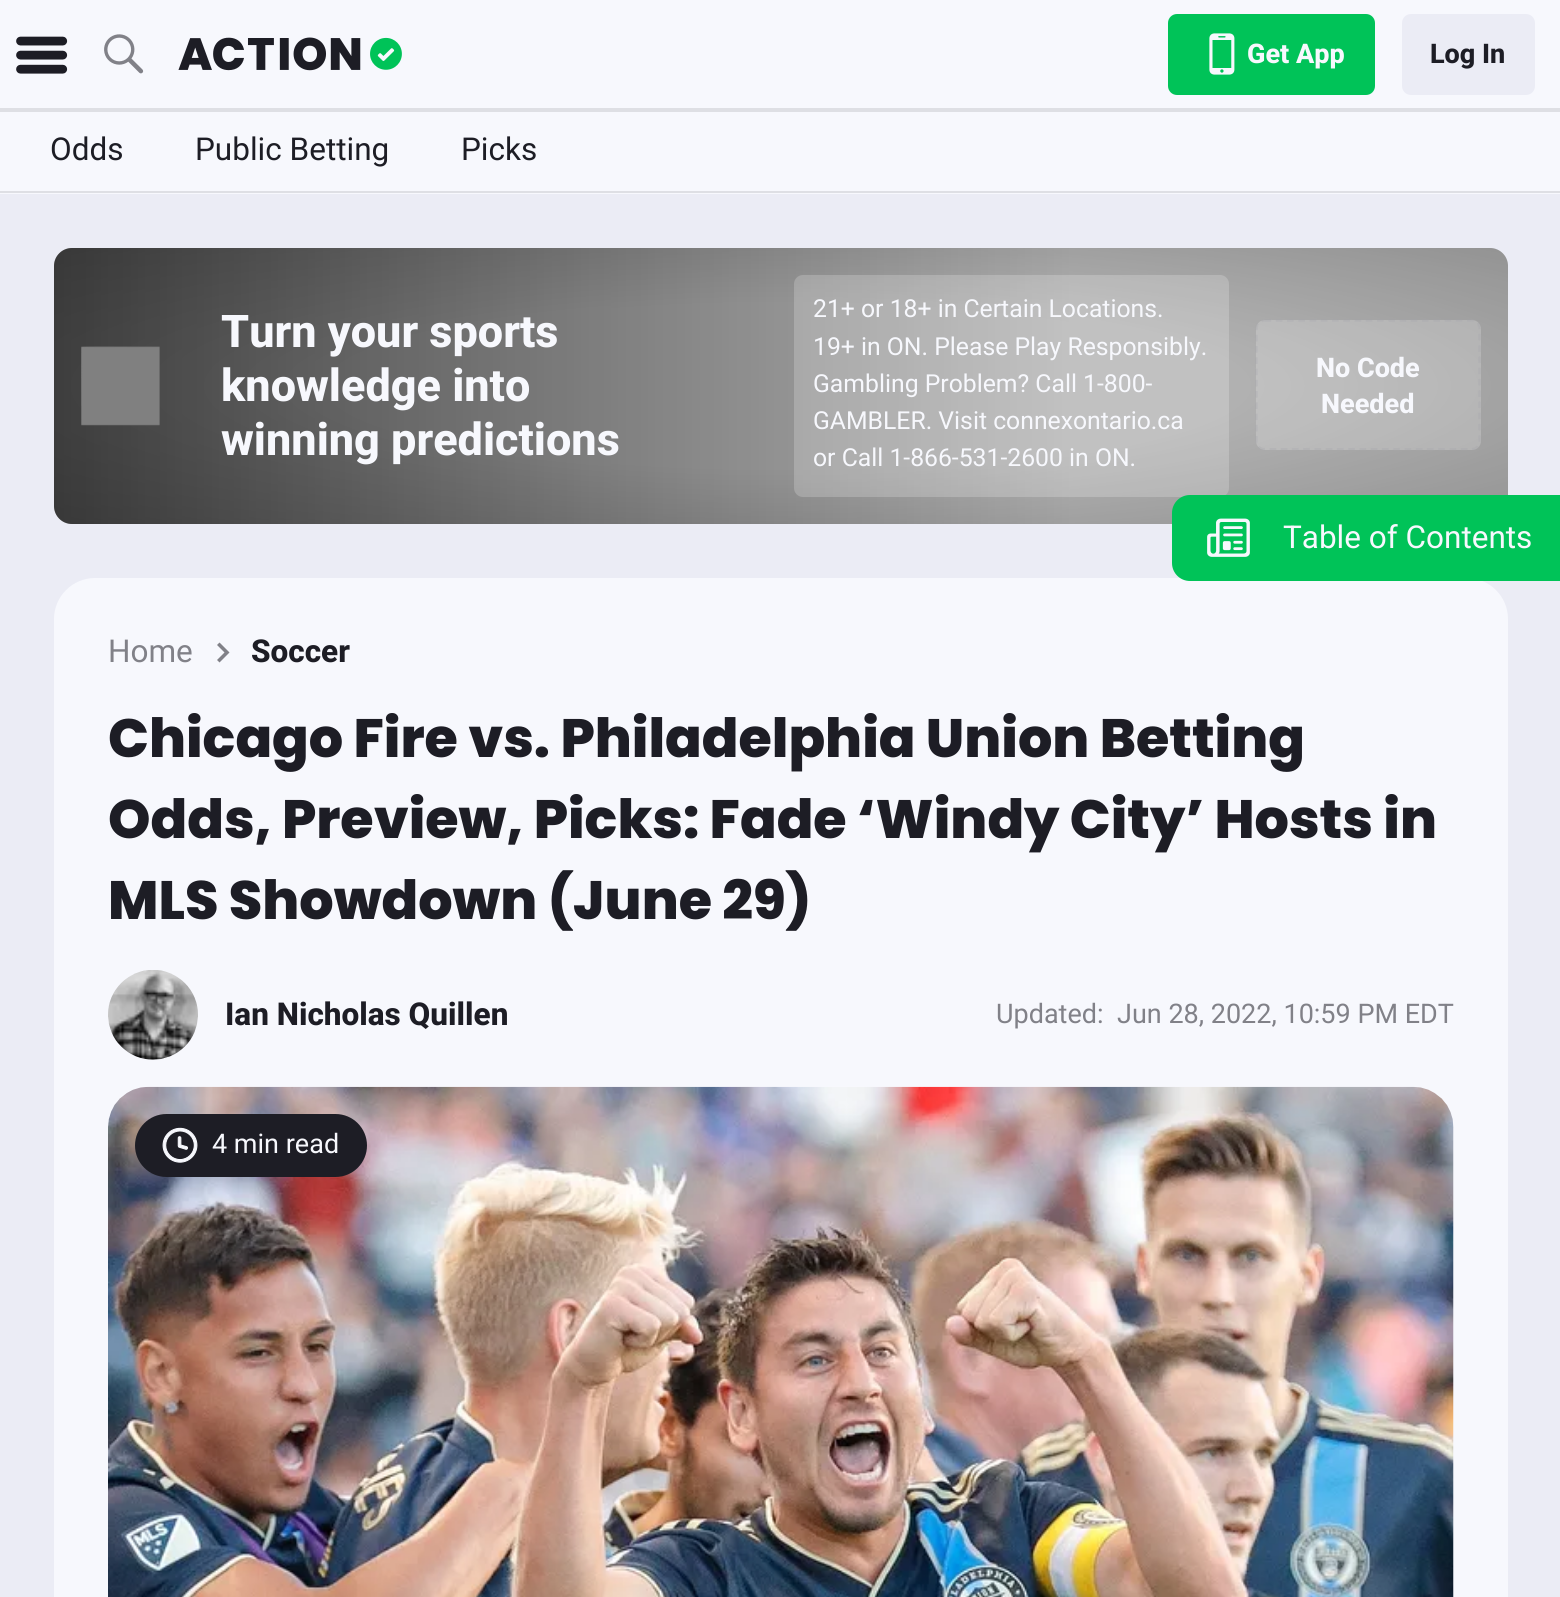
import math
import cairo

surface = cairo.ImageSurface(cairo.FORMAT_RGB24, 1560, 1597)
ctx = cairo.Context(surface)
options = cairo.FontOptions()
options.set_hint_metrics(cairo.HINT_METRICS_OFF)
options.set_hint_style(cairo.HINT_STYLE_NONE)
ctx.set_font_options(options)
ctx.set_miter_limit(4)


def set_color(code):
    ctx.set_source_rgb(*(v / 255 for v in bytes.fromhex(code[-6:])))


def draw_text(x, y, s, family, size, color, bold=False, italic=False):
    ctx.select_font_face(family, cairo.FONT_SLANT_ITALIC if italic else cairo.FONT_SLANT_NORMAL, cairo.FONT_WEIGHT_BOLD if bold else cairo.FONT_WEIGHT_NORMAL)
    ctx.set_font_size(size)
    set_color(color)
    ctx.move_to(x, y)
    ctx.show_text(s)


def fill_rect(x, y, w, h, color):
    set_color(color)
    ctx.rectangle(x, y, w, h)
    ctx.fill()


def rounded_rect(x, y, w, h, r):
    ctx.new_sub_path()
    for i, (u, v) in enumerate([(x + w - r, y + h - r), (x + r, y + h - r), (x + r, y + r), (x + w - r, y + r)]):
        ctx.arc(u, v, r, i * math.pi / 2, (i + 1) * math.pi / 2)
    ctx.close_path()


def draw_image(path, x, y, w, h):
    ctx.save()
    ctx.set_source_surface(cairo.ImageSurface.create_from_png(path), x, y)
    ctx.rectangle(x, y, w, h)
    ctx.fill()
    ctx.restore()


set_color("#ebecf5")
ctx.paint()
fill_rect(0, 0, 1560, 194, "#f7f8fd")
fill_rect(0, 108, 1560, 4, "#dedfe4")
draw_image("assets/img1.png", 16, 36, 52, 38)
draw_image("assets/img2.png", 104, 34, 40, 40)
draw_image("assets/img3.png", 178, 37, 224, 34)
set_color("#00c358")
rounded_rect(1168, 14, 207, 81, 9)
ctx.fill()
draw_image("assets/img4.png", 1209, 33, 26, 42)
draw_text(1247, 63, "Get App", "Roboto ExtraBold", 27, "#f7f8fd")
set_color("#ebecf5")
rounded_rect(1402, 14, 133, 81, 9)
ctx.fill()
draw_text(1430, 63, "Log In", "Roboto ExtraBold", 27, "#1d1d25")
fill_rect(0, 191, 1560, 2, "#dedfe4")
draw_text(50, 160, "Odds", "Roboto", 31.5, "#1d1d25")
draw_text(195, 160, "Public Betting", "Roboto", 31.5, "#1d1d25")
draw_text(461, 160, "Picks", "Roboto", 31.5, "#1d1d25")
set_color("#cccccc")
rounded_rect(54, 248, 1454, 276, 18)
ctx.fill()
gradient = cairo.LinearGradient(54, 386, 1508, 386)
gradient.add_color_stop_rgba(0, 0, 0, 0, 0.67)
gradient.add_color_stop_rgba(0.7, 0, 0, 0, 0.13)
ctx.set_source(gradient)
rounded_rect(54, 248, 1454, 276, 18)
ctx.fill()
gradient = cairo.RadialGradient(0, 0, 0, 0, 0, 1)
gradient.set_matrix(cairo.Matrix(1 / 1454, 0, 0, 1 / 277, -1 * 781 / 1454, -1 * 386 / 277))
gradient.add_color_stop_rgba(0, 1, 1, 1, 0)
gradient.add_color_stop_rgba(0.3, 0, 0, 0, 0)
gradient.add_color_stop_rgba(1, 0, 0, 0, 0.3)
ctx.set_source(gradient)
rounded_rect(54, 248, 1454, 276, 18)
ctx.fill()
draw_image("assets/img5.png", 81, 346, 79, 80)
draw_text(221, 347, "Turn your sports", "Roboto ExtraBold", 45, "#f7f8fd")
draw_text(221, 401, "knowledge into", "Roboto ExtraBold", 45, "#f7f8fd")
draw_text(221, 455, "winning predictions", "Roboto ExtraBold", 45, "#f7f8fd")
ctx.set_source_rgba(1, 1, 1, 0.2)
rounded_rect(794, 275, 435, 222, 9)
ctx.fill()
draw_text(813, 317, "21+ or 18+ in Certain Locations.", "Roboto", 24.75, "#f7f8fd")
draw_text(813, 355, "19+ in ON. Please Play Responsibly.", "Roboto", 24.75, "#f7f8fd")
draw_text(813, 392, "Gambling Problem? Call 1-800-", "Roboto", 24.75, "#f7f8fd")
draw_text(813, 429, "GAMBLER. Visit connexontario.ca", "Roboto", 24.75, "#f7f8fd")
draw_text(813, 466, "or Call 1-866-531-2600 in ON.", "Roboto", 24.75, "#f7f8fd")
ctx.set_source_rgba(1, 1, 1, 0.2)
rounded_rect(1256, 320, 225, 130, 9)
ctx.fill()
ctx.new_path()
ctx.move_to(1264.5, 320.5)
ctx.line_to(1471.5, 320.5)
ctx.curve_to(1476, 320.5, 1479.5, 324, 1479.5, 328.5)
ctx.line_to(1479.5, 441)
ctx.curve_to(1479.5, 445.5, 1476, 449, 1471.5, 449)
ctx.line_to(1264.5, 449)
ctx.curve_to(1260, 449, 1256.5, 445.5, 1256.5, 441)
ctx.line_to(1256.5, 328.5)
ctx.curve_to(1256.5, 324, 1260, 320.5, 1264.5, 320.5)
ctx.close_path()
ctx.set_source_rgba(0.643, 0.643, 0.667, 0.3)
ctx.set_line_width(2.2)
ctx.set_dash([6.75, 4.5])
ctx.stroke()
draw_text(1316, 377, "No Code", "Roboto ExtraBold", 27, "#f7f8fd")
draw_text(1321, 413, "Needed", "Roboto ExtraBold", 27, "#f7f8fd")
ctx.new_path()
ctx.move_to(95, 578)
ctx.line_to(1467, 578)
ctx.curve_to(1489.5, 578, 1508, 596.5, 1508, 619)
ctx.line_to(1508, 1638)
ctx.line_to(54, 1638)
ctx.line_to(54, 619)
ctx.curve_to(54, 596.5, 72.5, 578, 95, 578)
ctx.close_path()
ctx.fill()
set_color("#00c358")
ctx.new_path()
ctx.move_to(1190, 495)
ctx.line_to(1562, 495)
ctx.line_to(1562, 581)
ctx.line_to(1190, 581)
ctx.curve_to(1180, 581, 1172, 573, 1172, 563)
ctx.line_to(1172, 513)
ctx.curve_to(1172, 503, 1180, 495, 1190, 495)
ctx.close_path()
ctx.fill()
draw_image("assets/img6.png", 1207, 518, 43, 39)
draw_text(1283, 548, "Table of Contents", "Roboto", 31.5, "#f7f8fd")
draw_text(108, 662, "Home", "Roboto", 31.5, "#818188")
ctx.new_path()
ctx.move_to(219.5, 642.5)
ctx.line_to(217, 645)
ctx.line_to(224.5, 652.5)
ctx.line_to(217, 660)
ctx.line_to(219.5, 662.5)
ctx.line_to(229.5, 652.5)
ctx.close_path()
ctx.fill()
draw_text(251, 662, "Soccer", "Roboto ExtraBold", 31.5, "#1d1d25")
draw_text(108, 757, "Chicago Fire vs. Philadelphia Union Betting", "Poppins ExtraBold", 54, "#1d1d25")
draw_text(108, 838, "Odds, Preview, Picks: Fade ‘Windy City’ Hosts in", "Poppins ExtraBold", 54, "#1d1d25")
draw_text(108, 919, "MLS Showdown (June 29)", "Poppins ExtraBold", 54, "#1d1d25")
draw_image("assets/img7.png", 108, 970, 90, 90)
draw_text(225, 1025, "Ian Nicholas Quillen", "Roboto ExtraBold", 31.5, "#1d1d25")
draw_text(996, 1023, "Updated:", "Roboto", 27, "#818188")
draw_text(1117, 1023, "Jun 28, 2022, 10:59 PM EDT", "Roboto", 27, "#818188")
draw_image("assets/img8.png", 108, 1086, 1346, 511)
set_color("#1d1d25")
rounded_rect(135, 1114, 232, 63, 31.5)
ctx.fill()
draw_image("assets/img9.png", 162, 1127, 36, 36)
draw_text(212, 1153, "4 min read", "Roboto", 27, "#f7f8fd")
surface.write_to_png("output.png")
